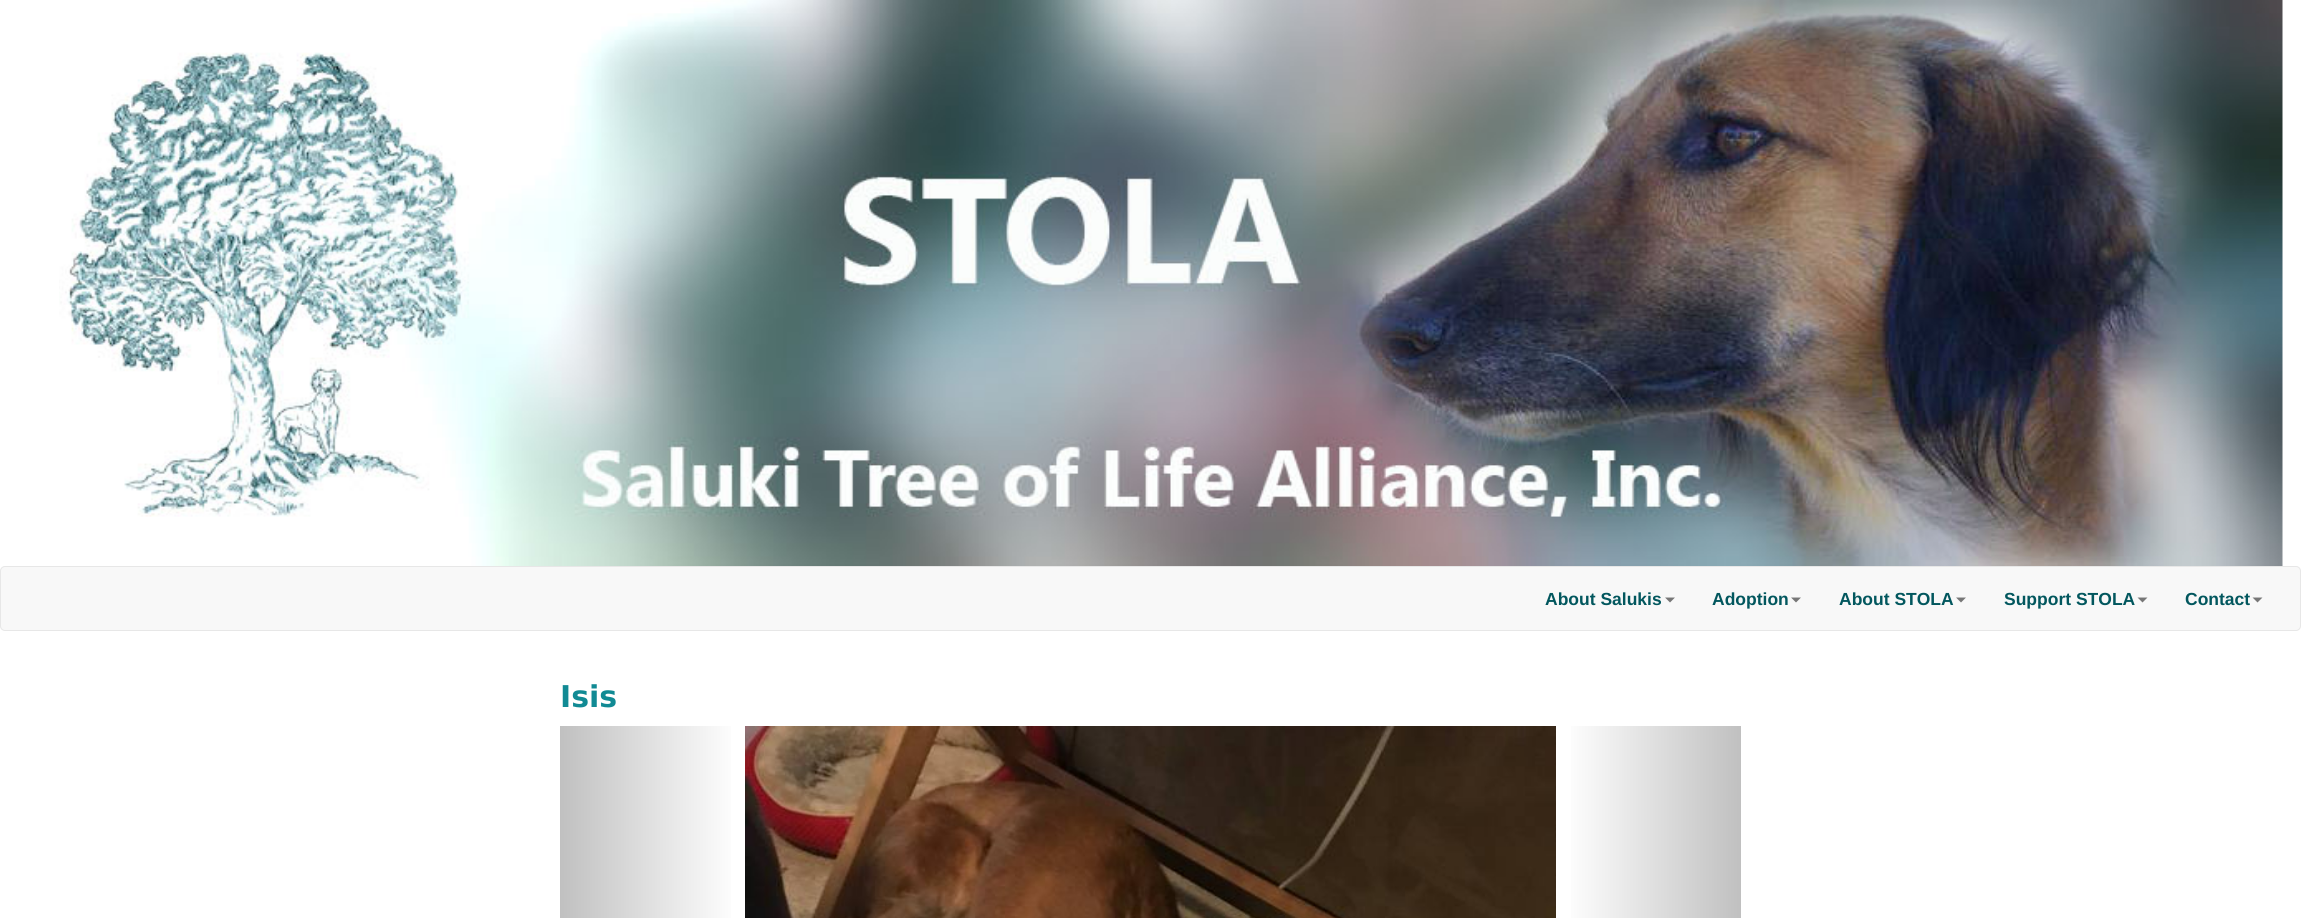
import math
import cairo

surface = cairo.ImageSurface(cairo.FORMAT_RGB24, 2301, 918)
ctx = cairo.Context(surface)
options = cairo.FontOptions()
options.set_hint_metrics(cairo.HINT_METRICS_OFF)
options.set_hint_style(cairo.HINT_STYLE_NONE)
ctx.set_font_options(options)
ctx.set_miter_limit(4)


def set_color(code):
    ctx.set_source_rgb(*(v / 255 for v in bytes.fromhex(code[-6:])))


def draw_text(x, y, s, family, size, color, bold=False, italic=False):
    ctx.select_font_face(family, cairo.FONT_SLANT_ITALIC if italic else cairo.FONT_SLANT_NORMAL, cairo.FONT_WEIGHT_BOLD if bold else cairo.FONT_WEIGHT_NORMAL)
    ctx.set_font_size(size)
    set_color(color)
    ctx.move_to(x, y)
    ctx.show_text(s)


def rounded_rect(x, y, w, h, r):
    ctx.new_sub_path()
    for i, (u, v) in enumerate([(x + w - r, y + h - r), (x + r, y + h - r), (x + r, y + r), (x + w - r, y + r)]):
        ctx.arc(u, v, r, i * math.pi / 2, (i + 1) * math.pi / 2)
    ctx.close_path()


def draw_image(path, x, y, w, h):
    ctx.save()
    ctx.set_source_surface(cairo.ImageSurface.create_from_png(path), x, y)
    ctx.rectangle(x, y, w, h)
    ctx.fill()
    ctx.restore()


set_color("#ffffff")
ctx.paint()
draw_image("assets/img1.png", 59, 0, 2224, 566)
set_color("#f8f8f8")
rounded_rect(0.5, 566.5, 2300, 64, 4.5)
ctx.fill_preserve()
set_color("#e7e7e7")
ctx.set_line_width(1)
ctx.stroke()
draw_text(1545, 605, "About Salukis", "Liberation Sans", 17.5, "#02575e", bold=True)
set_color("#777777")
ctx.new_path()
ctx.move_to(1665, 597.5)
ctx.line_to(1675, 597.5)
ctx.line_to(1670, 602.5)
ctx.close_path()
ctx.fill()
draw_text(1712, 605, "Adoption", "Liberation Sans", 17.5, "#02575e", bold=True)
set_color("#777777")
ctx.new_path()
ctx.move_to(1791, 597.5)
ctx.line_to(1801, 597.5)
ctx.line_to(1796, 602.5)
ctx.close_path()
ctx.fill()
draw_text(1839, 605, "About STOLA", "Liberation Sans", 17.5, "#02575e", bold=True)
set_color("#777777")
ctx.new_path()
ctx.move_to(1956, 597.5)
ctx.line_to(1966, 597.5)
ctx.line_to(1961, 602.5)
ctx.close_path()
ctx.fill()
draw_text(2004, 605, "Support STOLA", "Liberation Sans", 17.5, "#02575e", bold=True)
set_color("#777777")
ctx.new_path()
ctx.move_to(2137.5, 597.5)
ctx.line_to(2147.5, 597.5)
ctx.line_to(2142.5, 602.5)
ctx.close_path()
ctx.fill()
draw_text(2185, 605, "Contact", "Liberation Sans", 17.5, "#02575e", bold=True)
set_color("#777777")
ctx.new_path()
ctx.move_to(2252.5, 597.5)
ctx.line_to(2262.5, 597.5)
ctx.line_to(2257.5, 602.5)
ctx.close_path()
ctx.fill()
draw_text(560, 707, "Isis", "DejaVu Sans", 30, "#118a94", bold=True)
gradient = cairo.LinearGradient(560, 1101, 738, 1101)
gradient.add_color_stop_rgba(0, 0.753, 0.753, 0.753, 1)
gradient.add_color_stop_rgba(1, 1, 1, 1, 1)
ctx.set_source(gradient)
ctx.rectangle(560, 726, 171, 192)
ctx.fill()
draw_image("assets/img2.png", 745, 726, 811, 192)
gradient = cairo.LinearGradient(1564, 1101, 1741, 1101)
gradient.add_color_stop_rgba(0, 1, 1, 1, 1)
gradient.add_color_stop_rgba(1, 0.753, 0.753, 0.753, 1)
ctx.set_source(gradient)
ctx.rectangle(1571, 726, 170, 192)
ctx.fill()
surface.write_to_png("output.png")
